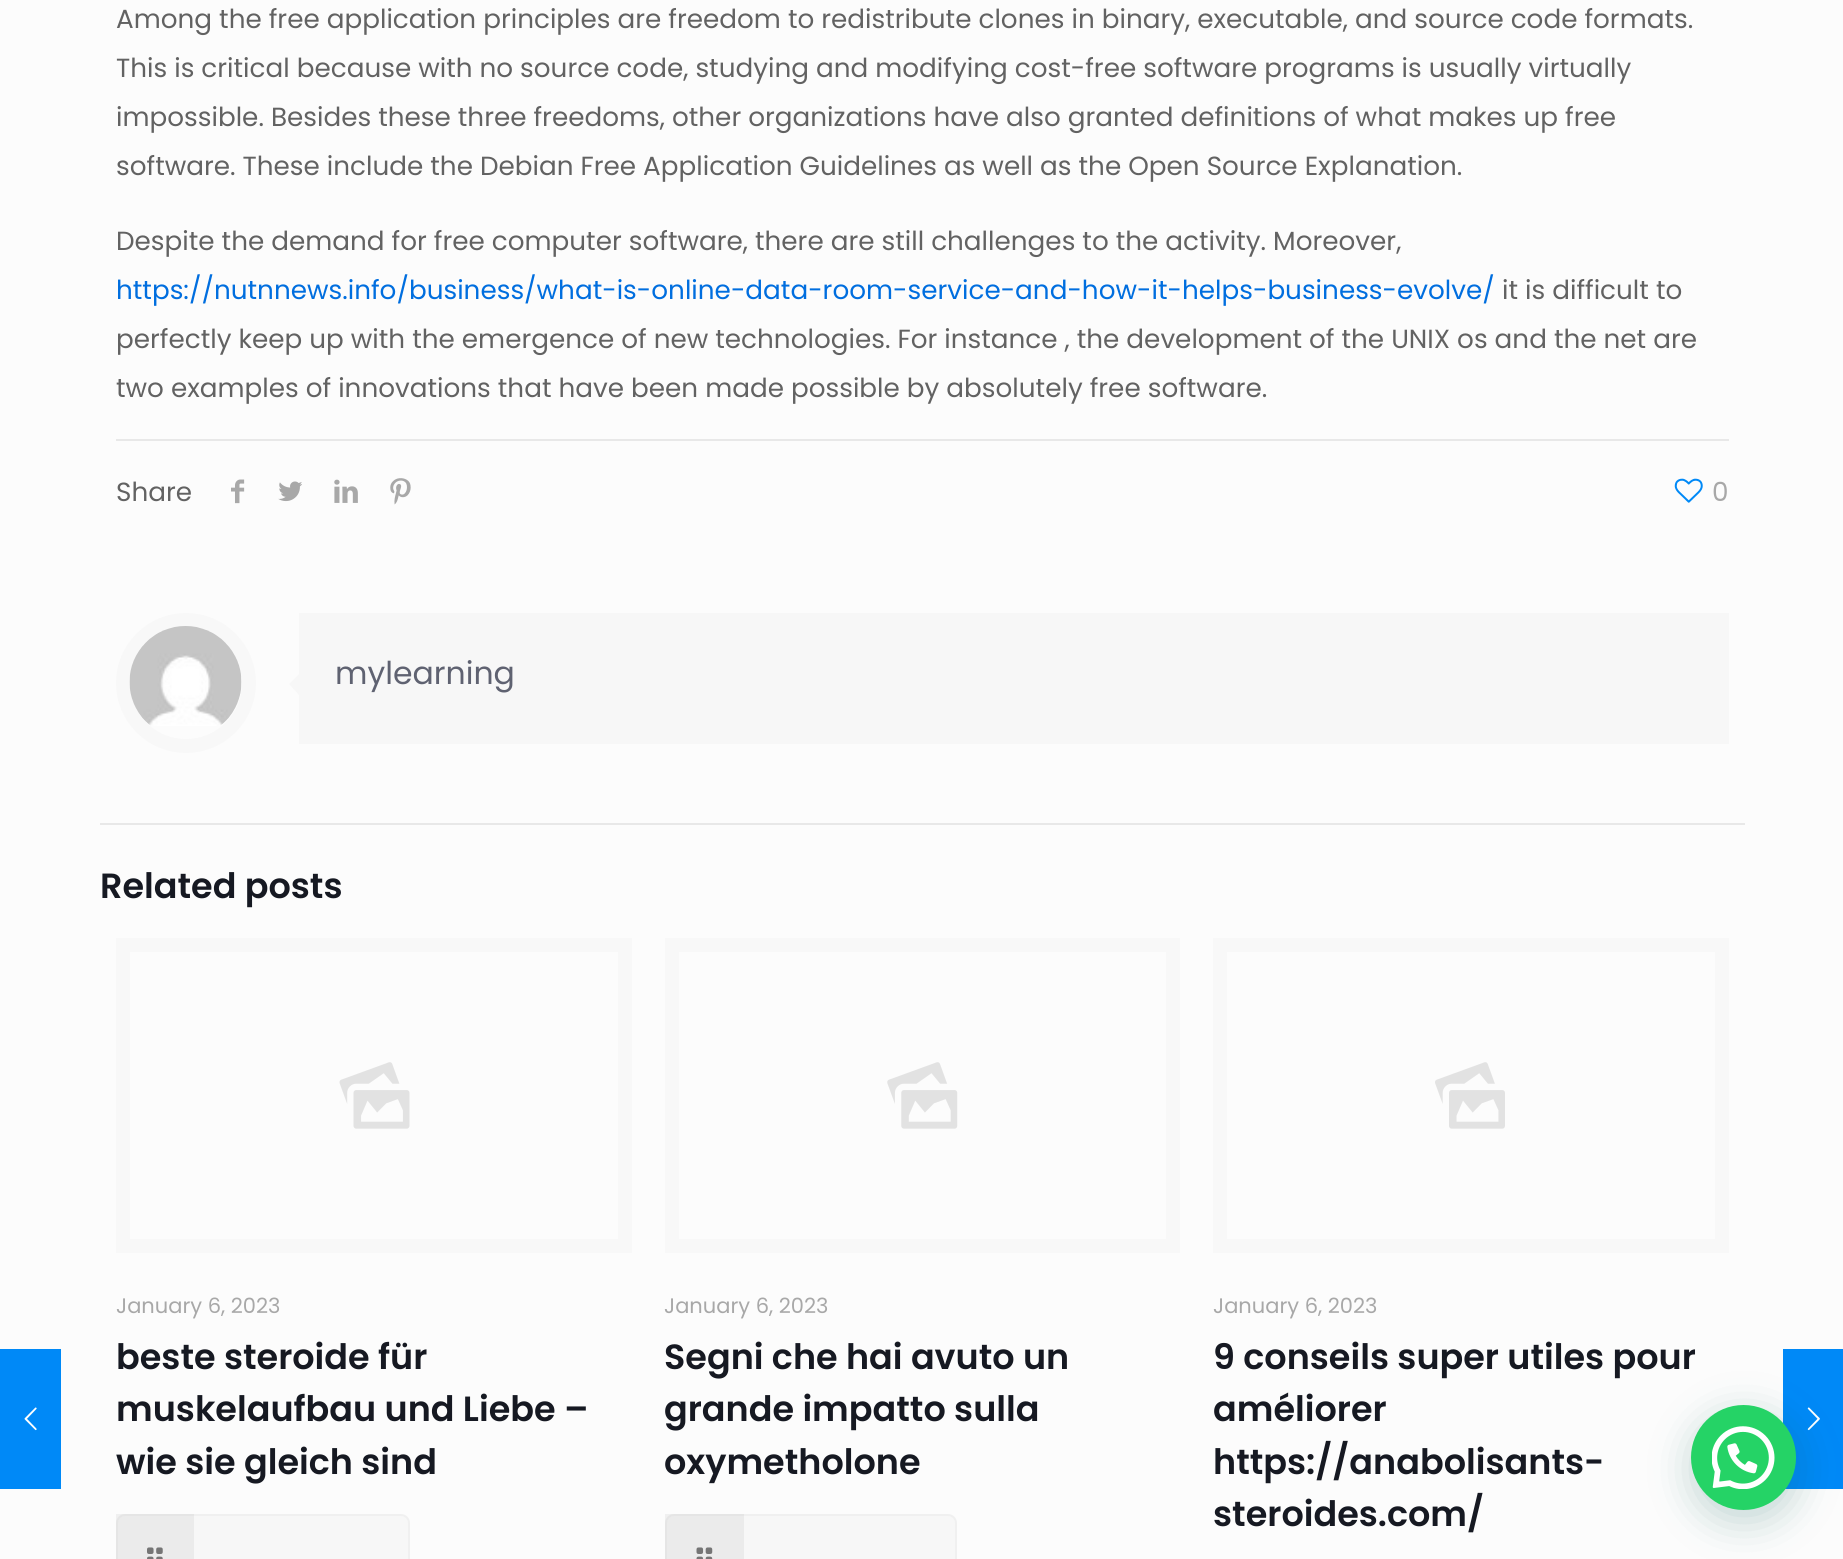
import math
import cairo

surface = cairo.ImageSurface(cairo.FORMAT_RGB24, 1843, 1559)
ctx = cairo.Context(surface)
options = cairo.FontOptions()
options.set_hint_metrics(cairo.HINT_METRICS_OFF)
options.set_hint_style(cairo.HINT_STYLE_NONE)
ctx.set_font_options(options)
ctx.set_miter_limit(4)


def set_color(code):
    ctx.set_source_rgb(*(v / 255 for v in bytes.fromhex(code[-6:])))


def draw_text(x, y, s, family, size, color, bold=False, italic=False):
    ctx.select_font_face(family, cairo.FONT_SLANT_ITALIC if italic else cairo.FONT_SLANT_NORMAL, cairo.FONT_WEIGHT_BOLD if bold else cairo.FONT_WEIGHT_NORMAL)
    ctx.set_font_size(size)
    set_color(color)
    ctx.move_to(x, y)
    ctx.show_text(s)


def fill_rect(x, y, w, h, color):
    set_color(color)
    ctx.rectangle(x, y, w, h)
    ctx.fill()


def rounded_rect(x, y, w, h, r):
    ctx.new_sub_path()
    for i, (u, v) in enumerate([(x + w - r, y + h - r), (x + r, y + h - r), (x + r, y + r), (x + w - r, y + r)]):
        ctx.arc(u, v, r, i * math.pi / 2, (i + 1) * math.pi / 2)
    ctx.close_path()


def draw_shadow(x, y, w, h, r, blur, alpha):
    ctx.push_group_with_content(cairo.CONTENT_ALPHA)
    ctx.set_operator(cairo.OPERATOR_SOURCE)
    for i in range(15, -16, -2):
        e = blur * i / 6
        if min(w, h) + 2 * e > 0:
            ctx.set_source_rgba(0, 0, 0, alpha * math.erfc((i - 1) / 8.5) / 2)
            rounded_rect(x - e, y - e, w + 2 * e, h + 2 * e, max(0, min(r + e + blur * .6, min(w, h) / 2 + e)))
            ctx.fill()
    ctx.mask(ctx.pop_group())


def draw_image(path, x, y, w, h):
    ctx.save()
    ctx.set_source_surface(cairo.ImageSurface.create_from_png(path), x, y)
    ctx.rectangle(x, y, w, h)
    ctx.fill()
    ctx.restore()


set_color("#fcfcfc")
ctx.paint()
fill_rect(0, 1349, 61, 140, "#0089f7")
draw_image("assets/img1.png", 24, 1407, 13, 24)
draw_text(116, 28, "Among the free application principles are freedom to redistribute clones in binary, executable, and source code formats.", "Poppins", 26.25, "#626262")
draw_text(116, 77, "This is critical because with no source code, studying and modifying cost-free software programs is usually virtually", "Poppins", 26.25, "#626262")
draw_text(116, 126, "impossible. Besides these three freedoms, other organizations have also granted definitions of what makes up free", "Poppins", 26.25, "#626262")
draw_text(116, 175, "software. These include the Debian Free Application Guidelines as well as the Open Source Explanation.", "Poppins", 26.25, "#626262")
draw_text(116, 250, "Despite the demand for free computer software, there are still challenges to the activity. Moreover,", "Poppins", 26.25, "#626262")
draw_text(116, 299, "https://nutnnews.info/business/what-is-online-data-room-service-and-how-it-helps-business-evolve/", "Poppins", 26.25, "#006edf")
draw_text(1502, 299, "it is difficult to", "Poppins", 26.25, "#626262")
draw_text(116, 348, "perfectly keep up with the emergence of new technologies. For instance , the development of the UNIX os and the net are", "Poppins", 26.25, "#626262")
draw_text(116, 397, "two examples of innovations that have been made possible by absolutely free software.", "Poppins", 26.25, "#626262")
fill_rect(116, 439, 1613, 2, "#e8e8e8")
draw_text(116, 501, "Share", "Poppins", 26.25, "#626262")
draw_image("assets/img2.png", 231, 479, 14, 25)
draw_image("assets/img3.png", 278, 481, 24, 21)
draw_image("assets/img4.png", 334, 479, 24, 24)
draw_image("assets/img5.png", 390, 478, 21, 27)
draw_image("assets/img6.png", 1674, 478, 29, 25)
draw_text(1712, 501, "0", "Poppins", 26.25, "#a8a8a8")
ctx.new_path()
ctx.arc(186, 683, 63, 0, 2 * math.pi)
set_color("#f8f8f8")
ctx.set_line_width(14)
ctx.stroke()
draw_image("assets/img7.png", 129, 626, 113, 100)
fill_rect(299, 613, 1430, 131, "#f7f7f7")
ctx.new_path()
ctx.move_to(299, 674)
ctx.line_to(299, 695)
ctx.line_to(289, 684)
ctx.close_path()
ctx.fill()
draw_text(335, 684, "mylearning", "Poppins", 31.5, "#5f6271")
fill_rect(100, 823, 1645, 2, "#e8e8e8")
draw_text(100, 898, "Related posts", "Poppins SemiBold", 35, "#161922")
ctx.rectangle(123, 945, 502, 301)
set_color("#f8f8f8")
ctx.stroke()
draw_image("assets/img8.png", 339, 1062, 71, 67)
draw_text(116, 1313, "January 6, 2023", "Poppins", 21, "#a8a8a8")
draw_text(116, 1369, "beste steroide für", "Poppins SemiBold", 35, "#161922")
draw_text(116, 1421, "muskelaufbau und Liebe –", "Poppins SemiBold", 35, "#161922")
draw_text(116, 1474, "wie sie gleich sind", "Poppins SemiBold", 35, "#161922")
set_color("#f7f7f7")
rounded_rect(117, 1515, 292, 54, 8)
ctx.fill_preserve()
set_color("#f0f0f0")
ctx.set_line_width(2)
ctx.stroke()
draw_image("assets/img9.png", 147, 1547, 16, 12)
ctx.set_source_rgba(0, 0, 0, 0.05)
ctx.rectangle(116, 1514, 78, 45)
ctx.fill()
ctx.rectangle(672, 945, 501, 301)
set_color("#f8f8f8")
ctx.set_line_width(14)
ctx.stroke()
draw_image("assets/img10.png", 887, 1062, 71, 67)
draw_text(664, 1313, "January 6, 2023", "Poppins", 21, "#a8a8a8")
draw_text(664, 1369, "Segni che hai avuto un", "Poppins SemiBold", 35, "#161922")
draw_text(664, 1421, "grande impatto sulla", "Poppins SemiBold", 35, "#161922")
draw_text(664, 1474, "oxymetholone", "Poppins SemiBold", 35, "#161922")
set_color("#f7f7f7")
rounded_rect(666, 1515, 290, 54, 8)
ctx.fill_preserve()
set_color("#f0f0f0")
ctx.set_line_width(2)
ctx.stroke()
draw_image("assets/img11.png", 696, 1547, 17, 12)
ctx.set_source_rgba(0, 0, 0, 0.05)
ctx.rectangle(665, 1514, 79, 45)
ctx.fill()
ctx.rectangle(1220, 945, 502, 301)
set_color("#f8f8f8")
ctx.set_line_width(14)
ctx.stroke()
draw_image("assets/img12.png", 1435, 1062, 70, 67)
draw_text(1213, 1313, "January 6, 2023", "Poppins", 21, "#a8a8a8")
draw_text(1213, 1369, "9 conseils super utiles pour", "Poppins SemiBold", 35, "#161922")
draw_text(1213, 1421, "améliorer", "Poppins SemiBold", 35, "#161922")
draw_text(1213, 1474, "https://anabolisants-", "Poppins SemiBold", 35, "#161922")
draw_text(1213, 1526, "steroides.com/", "Poppins SemiBold", 35, "#161922")
fill_rect(1783, 1349, 60, 140, "#0089f7")
draw_image("assets/img13.png", 1807, 1407, 13, 24)
set_color("#075e54")
draw_shadow(1692, 1416, 105, 105, 52.5, 21, 0.24)
set_color("#25d366")
ctx.arc(1743.5, 1457.5, 52.5, 0, 2 * math.pi)
ctx.fill()
draw_image("assets/img14.png", 1712, 1426, 63, 63)
surface.write_to_png("output.png")
